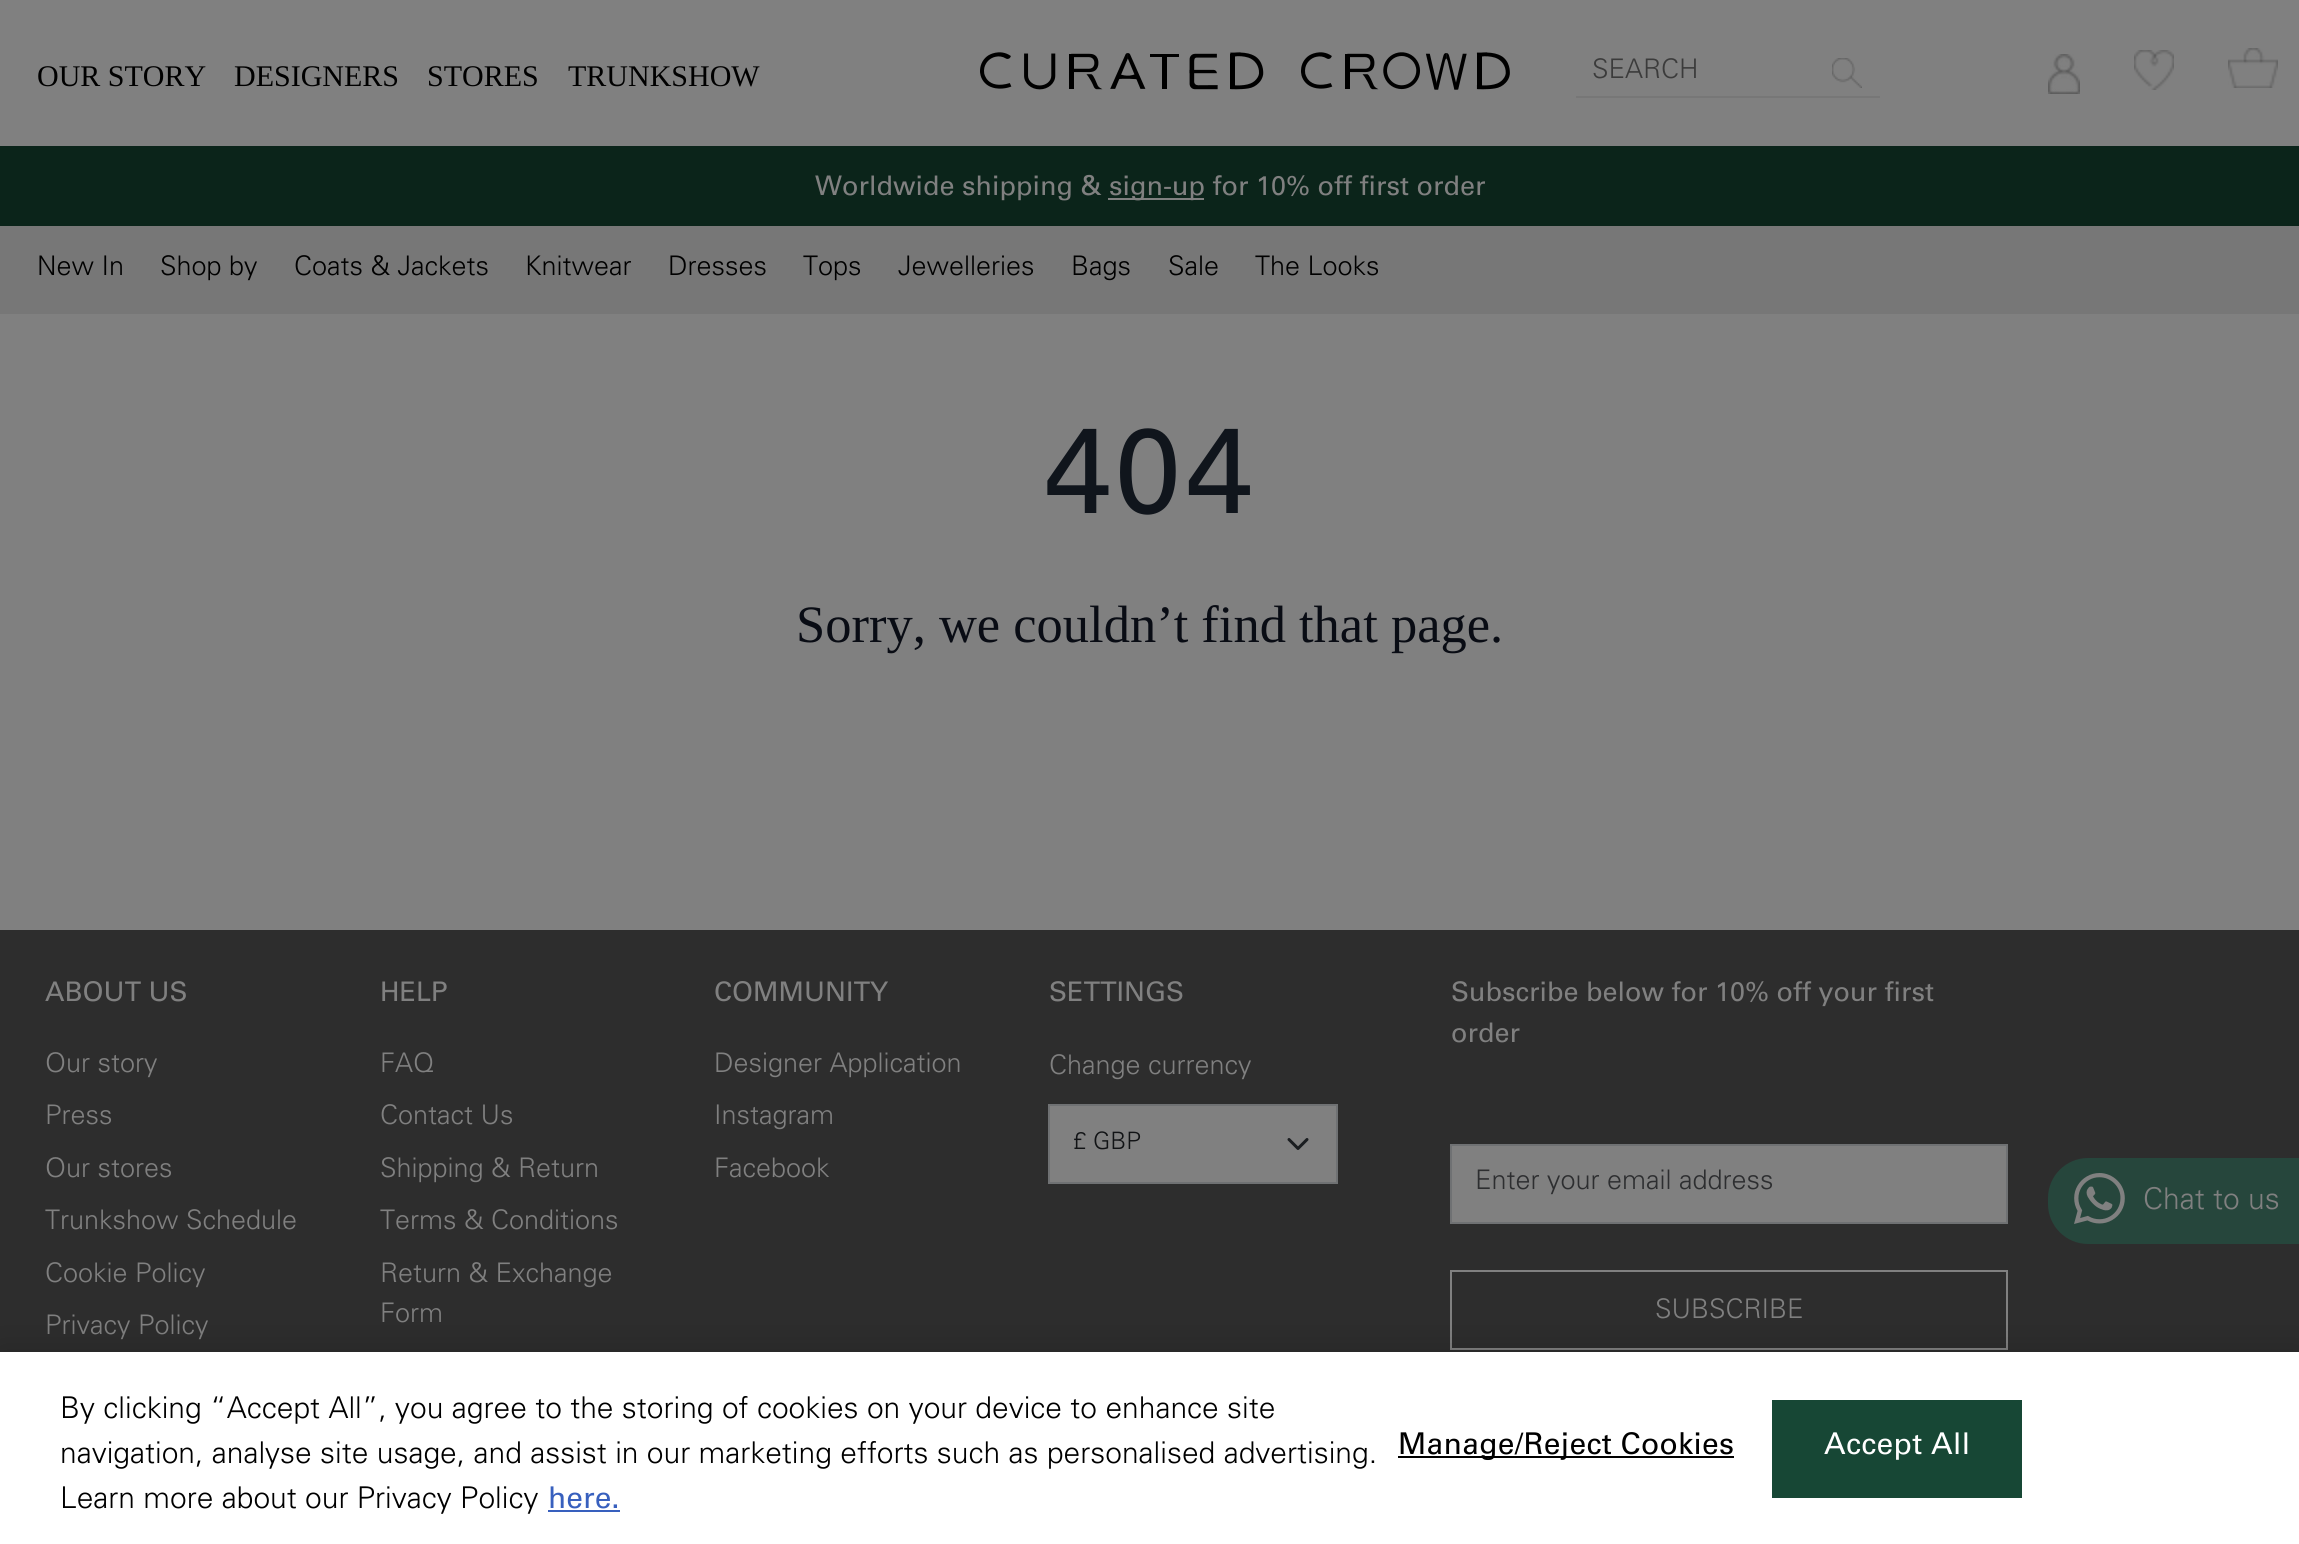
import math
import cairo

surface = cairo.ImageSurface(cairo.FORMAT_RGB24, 2299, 1544)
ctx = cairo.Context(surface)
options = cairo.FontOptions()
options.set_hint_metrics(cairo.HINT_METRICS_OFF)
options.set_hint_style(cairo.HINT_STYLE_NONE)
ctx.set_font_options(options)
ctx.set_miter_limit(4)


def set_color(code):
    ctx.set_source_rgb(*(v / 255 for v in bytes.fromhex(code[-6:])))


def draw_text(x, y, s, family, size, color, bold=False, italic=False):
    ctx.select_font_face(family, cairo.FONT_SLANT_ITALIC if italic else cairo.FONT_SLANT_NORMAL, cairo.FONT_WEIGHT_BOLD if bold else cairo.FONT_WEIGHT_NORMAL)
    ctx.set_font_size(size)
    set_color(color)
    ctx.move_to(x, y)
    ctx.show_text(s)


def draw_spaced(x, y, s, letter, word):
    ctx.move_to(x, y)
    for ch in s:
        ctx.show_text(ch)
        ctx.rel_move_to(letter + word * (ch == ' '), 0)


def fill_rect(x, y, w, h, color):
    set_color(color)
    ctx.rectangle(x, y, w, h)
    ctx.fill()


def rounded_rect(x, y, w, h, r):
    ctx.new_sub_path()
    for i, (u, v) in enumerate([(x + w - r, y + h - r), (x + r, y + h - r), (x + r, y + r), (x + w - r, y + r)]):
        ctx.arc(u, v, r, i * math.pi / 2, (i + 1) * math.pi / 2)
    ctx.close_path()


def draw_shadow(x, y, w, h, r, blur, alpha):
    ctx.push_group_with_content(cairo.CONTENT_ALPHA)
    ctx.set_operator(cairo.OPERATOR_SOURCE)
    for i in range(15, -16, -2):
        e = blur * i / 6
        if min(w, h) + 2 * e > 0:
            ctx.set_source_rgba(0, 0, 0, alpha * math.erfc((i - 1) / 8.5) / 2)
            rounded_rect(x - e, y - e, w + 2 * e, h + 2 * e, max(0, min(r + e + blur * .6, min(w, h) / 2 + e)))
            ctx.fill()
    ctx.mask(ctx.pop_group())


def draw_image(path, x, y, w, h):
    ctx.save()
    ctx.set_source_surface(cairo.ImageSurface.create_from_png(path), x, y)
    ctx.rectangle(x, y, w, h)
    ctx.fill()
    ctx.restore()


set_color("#808080")
ctx.paint()
draw_text(37, 86, "OUR STORY", "Liberation Serif", 30, "#000000")
draw_text(234, 86, "DESIGNERS", "Liberation Serif", 30, "#000000")
draw_text(427, 86, "STORES", "Liberation Serif", 30, "#000000")
draw_text(568, 86, "TRUNKSHOW", "Liberation Serif", 30, "#000000")
draw_image("assets/img1.png", 980, 52, 530, 38)
fill_rect(1576, 96, 304, 2, "#777777")
draw_text(1592, 78, "SEARCH", "Univers Light", 27, "#3b3b3b")
draw_image("assets/img2.png", 1832, 58, 30, 30)
draw_image("assets/img3.png", 2048, 54, 32, 40)
draw_image("assets/img4.png", 2134, 50, 40, 40)
draw_image("assets/img5.png", 2228, 48, 50, 40)
fill_rect(0, 146, 2299, 80, "#0b241a")
draw_text(815, 195, "Worldwide shipping &", "Univers", 27, "#808080")
fill_rect(1108, 198, 96, 2, "#808080")
draw_text(1109, 195, "sign-up for 10% off first order", "Univers", 27, "#808080")
fill_rect(0, 226, 2299, 88, "#777777")
draw_text(37, 275, "New In", "Univers Light", 27, "#000000")
draw_text(160, 275, "Shop by", "Univers Light", 27, "#000000")
draw_text(294, 275, "Coats & Jackets", "Univers Light", 27, "#000000")
draw_text(525, 275, "Knitwear", "Univers Light", 27, "#000000")
draw_text(668, 275, "Dresses", "Univers Light", 27, "#000000")
draw_text(803, 275, "Tops", "Univers Light", 27, "#000000")
draw_text(898, 275, "Jewelleries", "Univers Light", 27, "#000000")
draw_text(1071, 275, "Bags", "Univers Light", 27, "#000000")
draw_text(1168, 275, "Sale", "Univers Light", 27, "#000000")
draw_text(1255, 275, "The Looks", "Univers Light", 27, "#000000")
ctx.select_font_face("Univers")
ctx.set_font_size(120)
set_color("#10151c")
draw_spaced(1044, 513, "404", 4, 0)
draw_text(796, 642, "Sorry, we couldn’t find that page.", "Liberation Serif", 52.5, "#090c14")
fill_rect(0, 930, 2299, 422, "#2d2d2d")
draw_text(45, 1001, "ABOUT US", "Univers", 27, "#808080")
draw_text(45, 1072, "Our story", "Univers Light", 27, "#808080")
draw_text(45, 1124, "Press", "Univers Light", 27, "#808080")
draw_text(45, 1177, "Our stores", "Univers Light", 27, "#808080")
draw_text(45, 1229, "Trunkshow Schedule", "Univers Light", 27, "#808080")
draw_text(45, 1282, "Cookie Policy", "Univers Light", 27, "#808080")
draw_text(45, 1334, "Privacy Policy", "Univers Light", 27, "#808080")
draw_text(380, 1001, "HELP", "Univers", 27, "#808080")
draw_text(380, 1072, "FAQ", "Univers Light", 27, "#808080")
draw_text(380, 1124, "Contact Us", "Univers Light", 27, "#808080")
draw_text(380, 1177, "Shipping & Return", "Univers Light", 27, "#808080")
draw_text(380, 1229, "Terms & Conditions", "Univers Light", 27, "#808080")
draw_text(380, 1282, "Return & Exchange", "Univers Light", 27, "#808080")
draw_text(380, 1322, "Form", "Univers Light", 27, "#808080")
draw_text(714, 1001, "COMMUNITY", "Univers", 27, "#808080")
draw_text(714, 1072, "Designer Application", "Univers Light", 27, "#808080")
draw_text(714, 1124, "Instagram", "Univers Light", 27, "#808080")
draw_text(714, 1177, "Facebook", "Univers Light", 27, "#808080")
draw_text(1049, 1001, "SETTINGS", "Univers", 27, "#808080")
draw_text(1049, 1074, "Change currency", "Univers Light", 27, "#808080")
fill_rect(1050, 1106, 286, 76, "#808080")
ctx.new_path()
ctx.move_to(1289, 1139.5)
ctx.line_to(1298, 1148.5)
ctx.line_to(1307, 1139.5)
set_color("#1a1d20")
ctx.set_line_width(3)
ctx.set_line_cap(cairo.LINE_CAP_ROUND)
ctx.set_line_join(cairo.LINE_JOIN_ROUND)
ctx.stroke()
ctx.rectangle(1049, 1105, 288, 78)
set_color("#6f7173")
ctx.set_line_width(2)
ctx.set_line_cap(cairo.LINE_CAP_BUTT)
ctx.set_line_join(cairo.LINE_JOIN_MITER)
ctx.stroke()
draw_text(1073, 1149, "£ GBP", "Univers Light", 24, "#111315")
draw_text(1451, 1001, "Subscribe below for 10% off your first", "Univers", 27, "#808080")
draw_text(1451, 1042, "order", "Univers", 27, "#808080")
ctx.rectangle(1451, 1145, 556, 78)
ctx.fill_preserve()
set_color("#6f7173")
ctx.stroke()
draw_text(1475, 1189, "Enter your email address", "Univers Light", 27, "#2d2e30")
ctx.rectangle(1451, 1271, 556, 78)
set_color("#808080")
ctx.stroke()
draw_text(1655, 1318, "SUBSCRIBE", "Univers Light", 27, "#808080")
set_color("#26463c")
ctx.new_path()
ctx.move_to(2088, 1158)
ctx.line_to(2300, 1158)
ctx.line_to(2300, 1244)
ctx.line_to(2088, 1244)
ctx.curve_to(2066, 1244, 2048, 1226, 2048, 1204)
ctx.line_to(2048, 1198)
ctx.curve_to(2048, 1176, 2066, 1158, 2088, 1158)
ctx.close_path()
ctx.fill()
draw_image("assets/img6.png", 2074, 1173, 51, 51)
draw_text(2143, 1209, "Chat to us", "Univers Light", 30, "#808080")
set_color("#000000")
draw_shadow(0, 1352, 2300, 192, 0, 18, 0.2)
fill_rect(0, 1352, 2299, 192, "#ffffff")
draw_text(60, 1418, "By clicking “Accept All”, you agree to the storing of cookies on your device to enhance site", "Univers Light", 30, "#000000")
draw_text(60, 1463, "navigation, analyse site usage, and assist in our marketing efforts such as personalised advertising.", "Univers Light", 30, "#000000")
draw_text(60, 1508, "Learn more about our Privacy Policy", "Univers Light", 30, "#000000")
draw_text(548, 1508, "here.", "Univers", 30, "#3860be")
fill_rect(548, 1510, 72, 2, "#3860be")
fill_rect(1398, 1456, 336, 2, "#000000")
draw_spaced(1398, 1454, "Manage/Reject Cookies", 0.3, 0)
fill_rect(1772, 1400, 250, 98, "#174735")
set_color("#ffffff")
draw_spaced(1824, 1454, "Accept All", 0.3, 0)
surface.write_to_png("output.png")
